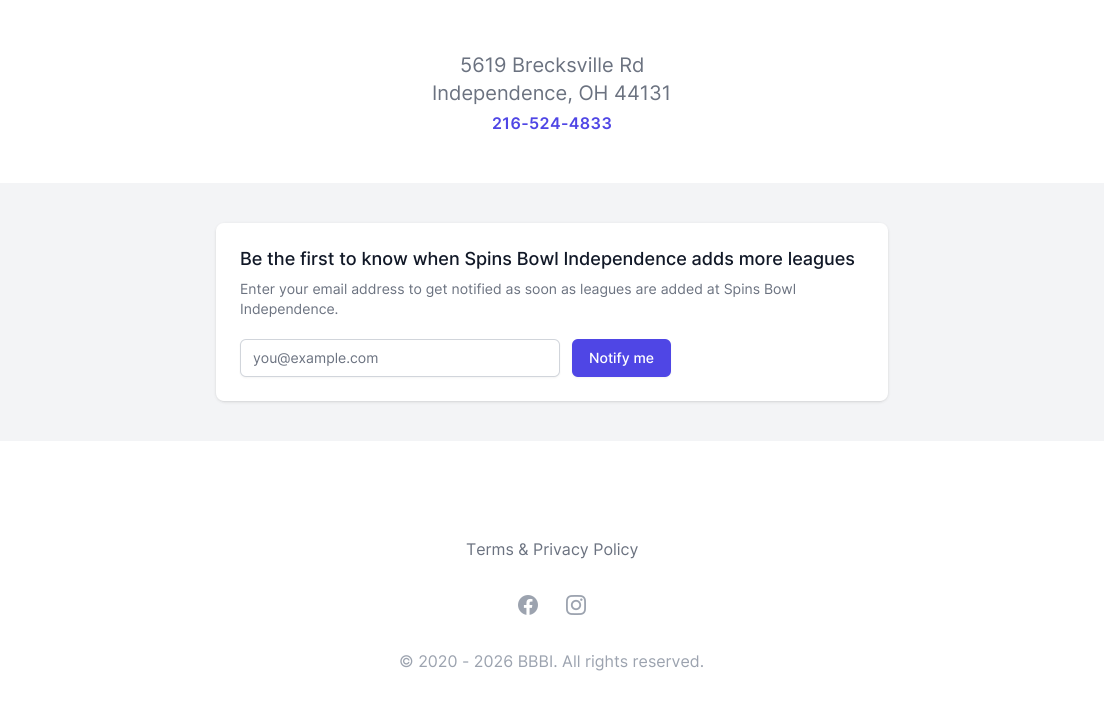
import math
import cairo

surface = cairo.ImageSurface(cairo.FORMAT_RGB24, 1104, 716)
ctx = cairo.Context(surface)
options = cairo.FontOptions()
options.set_hint_metrics(cairo.HINT_METRICS_OFF)
options.set_hint_style(cairo.HINT_STYLE_NONE)
ctx.set_font_options(options)
ctx.set_miter_limit(4)


def set_color(code):
    ctx.set_source_rgb(*(v / 255 for v in bytes.fromhex(code[-6:])))


def draw_text(x, y, s, family, size, color, bold=False, italic=False):
    ctx.select_font_face(family, cairo.FONT_SLANT_ITALIC if italic else cairo.FONT_SLANT_NORMAL, cairo.FONT_WEIGHT_BOLD if bold else cairo.FONT_WEIGHT_NORMAL)
    ctx.set_font_size(size)
    set_color(color)
    ctx.move_to(x, y)
    ctx.show_text(s)


def draw_spaced(x, y, s, letter, word):
    ctx.move_to(x, y)
    for ch in s:
        ctx.show_text(ch)
        ctx.rel_move_to(letter + word * (ch == ' '), 0)


def fill_rect(x, y, w, h, color):
    set_color(color)
    ctx.rectangle(x, y, w, h)
    ctx.fill()


def rounded_rect(x, y, w, h, r):
    ctx.new_sub_path()
    for i, (u, v) in enumerate([(x + w - r, y + h - r), (x + r, y + h - r), (x + r, y + r), (x + w - r, y + r)]):
        ctx.arc(u, v, r, i * math.pi / 2, (i + 1) * math.pi / 2)
    ctx.close_path()


def draw_shadow(x, y, w, h, r, blur, alpha):
    ctx.push_group_with_content(cairo.CONTENT_ALPHA)
    ctx.set_operator(cairo.OPERATOR_SOURCE)
    for i in range(15, -16, -2):
        e = blur * i / 6
        if min(w, h) + 2 * e > 0:
            ctx.set_source_rgba(0, 0, 0, alpha * math.erfc((i - 1) / 8.5) / 2)
            rounded_rect(x - e, y - e, w + 2 * e, h + 2 * e, max(0, min(r + e + blur * .6, min(w, h) / 2 + e)))
            ctx.fill()
    ctx.mask(ctx.pop_group())


def draw_image(path, x, y, w, h):
    ctx.save()
    ctx.set_source_surface(cairo.ImageSurface.create_from_png(path), x, y)
    ctx.rectangle(x, y, w, h)
    ctx.fill()
    ctx.restore()


set_color("#f3f4f6")
ctx.paint()
fill_rect(0, 0, 1104, 183, "#ffffff")
draw_text(460, 72, "5619 Brecksville Rd", "Inter", 20, "#6b7280", italic=True)
draw_text(432, 100, "Independence, OH 44131", "Inter", 20, "#6b7280", italic=True)
ctx.select_font_face("Inter SemiBold", cairo.FONT_SLANT_ITALIC)
ctx.set_font_size(16)
set_color("#4f46e5")
draw_spaced(492, 129, "216-524-4833", 0.4, 0)
set_color("#000000")
draw_shadow(217, 225, 670, 176, 7, 1, 0.1)
draw_shadow(216, 224, 672, 178, 8, 1.5, 0.1)
set_color("#ffffff")
rounded_rect(216, 223, 672, 178, 8)
ctx.fill()
draw_text(240, 265, "Be the first to know when Spins Bowl Independence adds more leagues", "Inter Medium", 18, "#111827", italic=True)
draw_text(240, 294, "Enter your email address to get notified as soon as leagues are added at Spins Bowl", "Inter", 14, "#6b7280", italic=True)
draw_text(240, 314, "Independence.", "Inter", 14, "#6b7280", italic=True)
set_color("#000000")
draw_shadow(240, 340, 320, 38, 6, 1, 0.05)
set_color("#ffffff")
rounded_rect(240.5, 339.5, 319, 37, 5.5)
ctx.fill_preserve()
set_color("#d1d5db")
ctx.set_line_width(1)
ctx.stroke()
draw_text(253, 363, "you@example.com", "Inter", 14, "#6b7280", italic=True)
set_color("#000000")
draw_shadow(572, 340, 99, 38, 6, 1, 0.05)
set_color("#4f46e5")
rounded_rect(572, 339, 99, 38, 6)
ctx.fill()
draw_text(589, 363, "Notify me", "Inter Medium", 14, "#ffffff", italic=True)
fill_rect(0, 441, 1104, 275, "#ffffff")
draw_text(466, 555, "Terms & Privacy Policy", "Inter", 16, "#6b7280", italic=True)
draw_image("assets/img1.png", 518, 595, 20, 20)
draw_image("assets/img2.png", 566, 595, 20, 20)
draw_text(399, 667, "© 2020 - 2026 BBBI. All rights reserved.", "Inter", 16, "#9ca3af", italic=True)
surface.write_to_png("output.png")
